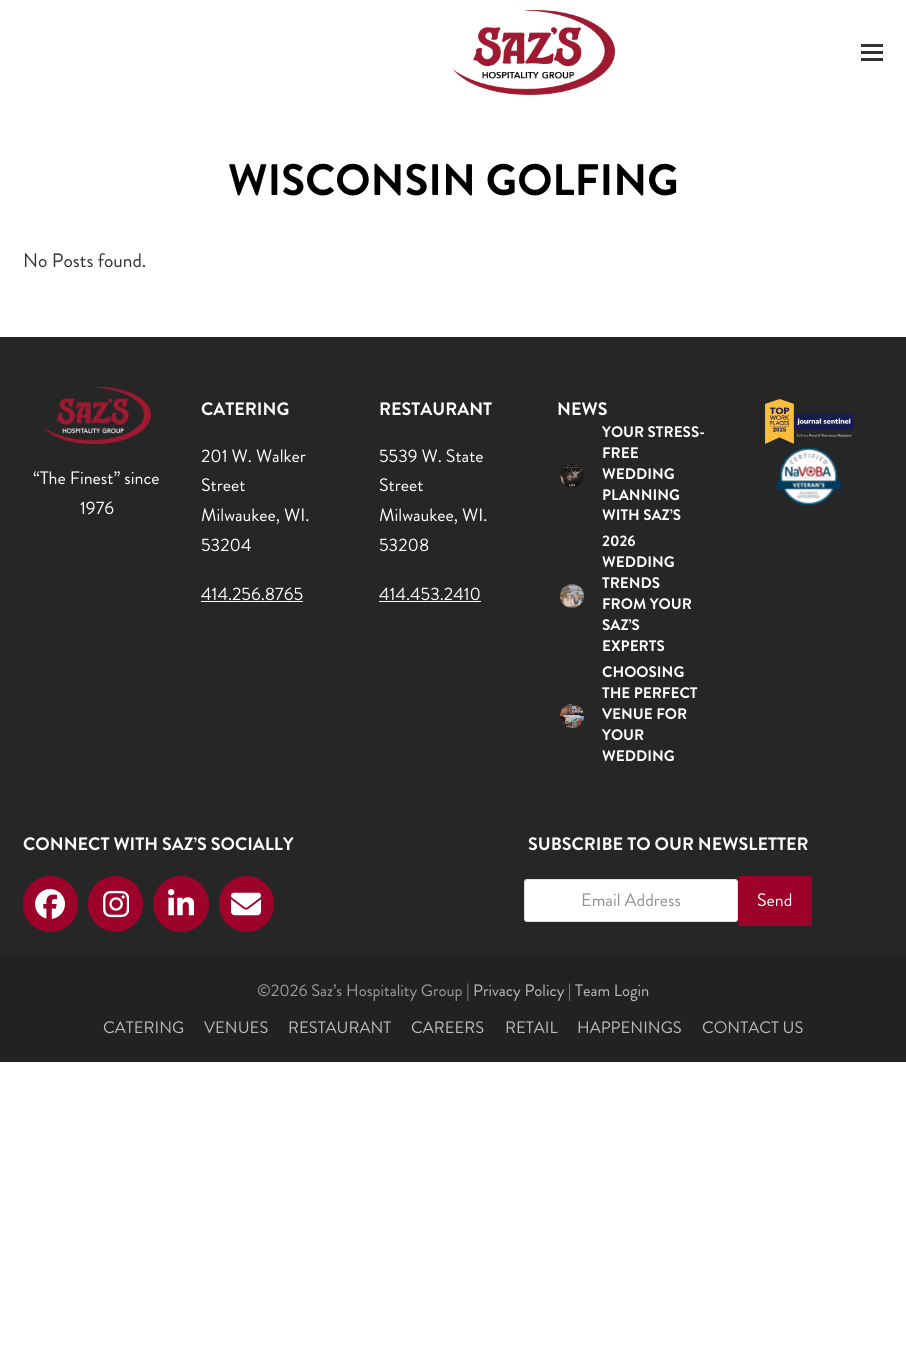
import math
import cairo

surface = cairo.ImageSurface(cairo.FORMAT_RGB24, 906, 1372)
ctx = cairo.Context(surface)
options = cairo.FontOptions()
options.set_hint_metrics(cairo.HINT_METRICS_OFF)
options.set_hint_style(cairo.HINT_STYLE_NONE)
ctx.set_font_options(options)
ctx.set_miter_limit(4)


def set_color(code):
    ctx.set_source_rgb(*(v / 255 for v in bytes.fromhex(code[-6:])))


def draw_text(x, y, s, family, size, color, bold=False, italic=False):
    ctx.select_font_face(family, cairo.FONT_SLANT_ITALIC if italic else cairo.FONT_SLANT_NORMAL, cairo.FONT_WEIGHT_BOLD if bold else cairo.FONT_WEIGHT_NORMAL)
    ctx.set_font_size(size)
    set_color(color)
    ctx.move_to(x, y)
    ctx.show_text(s)


def fill_rect(x, y, w, h, color):
    set_color(color)
    ctx.rectangle(x, y, w, h)
    ctx.fill()


def rounded_rect(x, y, w, h, r):
    ctx.new_sub_path()
    for i, (u, v) in enumerate([(x + w - r, y + h - r), (x + r, y + h - r), (x + r, y + r), (x + w - r, y + r)]):
        ctx.arc(u, v, r, i * math.pi / 2, (i + 1) * math.pi / 2)
    ctx.close_path()


def draw_image(path, x, y, w, h):
    ctx.save()
    ctx.set_source_surface(cairo.ImageSurface.create_from_png(path), x, y)
    ctx.rectangle(x, y, w, h)
    ctx.fill()
    ctx.restore()


set_color("#ffffff")
ctx.paint()
draw_image("assets/img1.png", 453, 10, 162, 85)
fill_rect(861, 51, 22, 3, "#333333")
fill_rect(861, 44, 22, 3, "#333333")
fill_rect(861, 58, 22, 3, "#333333")
draw_text(228, 195, "WISCONSIN GOLFING", "Brandon Grotesque", 44, "#000000", bold=True)
draw_text(23, 267, "No Posts found.", "Brandon Grotesque", 19.5, "#333333")
fill_rect(0, 337, 906, 620, "#262626")
draw_image("assets/img2.png", 43, 387, 108, 57)
draw_text(33, 484, "“The Finest” since", "Brandon Grotesque", 18, "#ffffff")
draw_text(80, 514, "1976", "Brandon Grotesque", 18, "#ffffff")
draw_text(201, 415, "CATERING", "Brandon Grotesque", 18, "#ffffff", bold=True)
draw_text(201, 462, "201 W. Walker", "Brandon Grotesque", 18, "#ffffff")
draw_text(201, 491, "Street", "Brandon Grotesque", 18, "#ffffff")
draw_text(201, 521, "Milwaukee, WI.", "Brandon Grotesque", 18, "#ffffff")
draw_text(201, 551, "53204", "Brandon Grotesque", 18, "#ffffff")
draw_text(201, 600, "414.256.8765", "Brandon Grotesque", 18, "#ffffff")
fill_rect(201, 601, 102, 1, "#ffffff")
draw_text(379, 415, "RESTAURANT", "Brandon Grotesque", 18, "#ffffff", bold=True)
draw_text(379, 462, "5539 W. State", "Brandon Grotesque", 18, "#ffffff")
draw_text(379, 491, "Street", "Brandon Grotesque", 18, "#ffffff")
draw_text(379, 521, "Milwaukee, WI.", "Brandon Grotesque", 18, "#ffffff")
draw_text(379, 551, "53208", "Brandon Grotesque", 18, "#ffffff")
draw_text(379, 600, "414.453.2410", "Brandon Grotesque", 18, "#ffffff")
fill_rect(379, 601, 102, 1, "#ffffff")
draw_text(557, 415, "NEWS", "Brandon Grotesque", 18, "#ffffff", bold=True)
draw_image("assets/img3.png", 560, 464, 24, 23)
draw_text(602, 437, "YOUR STRESS-", "Brandon Grotesque", 15.25, "#ffffff", bold=True)
draw_text(602, 458, "FREE", "Brandon Grotesque", 15.25, "#ffffff", bold=True)
draw_text(602, 479, "WEDDING", "Brandon Grotesque", 15.25, "#ffffff", bold=True)
draw_text(602, 500, "PLANNING", "Brandon Grotesque", 15.25, "#ffffff", bold=True)
draw_text(602, 520, "WITH SAZ’S", "Brandon Grotesque", 15.25, "#ffffff", bold=True)
draw_image("assets/img4.png", 560, 584, 24, 24)
draw_text(602, 546, "2026", "Brandon Grotesque", 15.25, "#ffffff", bold=True)
draw_text(602, 567, "WEDDING", "Brandon Grotesque", 15.25, "#ffffff", bold=True)
draw_text(602, 588, "TRENDS", "Brandon Grotesque", 15.25, "#ffffff", bold=True)
draw_text(602, 609, "FROM YOUR", "Brandon Grotesque", 15.25, "#ffffff", bold=True)
draw_text(602, 630, "SAZ’S", "Brandon Grotesque", 15.25, "#ffffff", bold=True)
draw_text(602, 651, "EXPERTS", "Brandon Grotesque", 15.25, "#ffffff", bold=True)
draw_image("assets/img5.png", 560, 704, 24, 24)
draw_text(602, 677, "CHOOSING", "Brandon Grotesque", 15.25, "#ffffff", bold=True)
draw_text(602, 698, "THE PERFECT", "Brandon Grotesque", 15.25, "#ffffff", bold=True)
draw_text(602, 719, "VENUE FOR", "Brandon Grotesque", 15.25, "#ffffff", bold=True)
draw_text(602, 740, "YOUR", "Brandon Grotesque", 15.25, "#ffffff", bold=True)
draw_text(602, 761, "WEDDING", "Brandon Grotesque", 15.25, "#ffffff", bold=True)
draw_image("assets/img6.png", 765, 399, 89, 45)
draw_image("assets/img7.png", 776, 447, 66, 59)
draw_text(23, 850, "CONNECT WITH SAZ’S SOCIALLY", "Brandon Grotesque", 18, "#ffffff", bold=True)
set_color("#9d032a")
rounded_rect(23, 876, 55, 56, 27.5)
ctx.fill()
draw_image("assets/img8.png", 35, 889, 30, 30)
rounded_rect(88, 876, 55, 56, 27.5)
ctx.fill()
draw_image("assets/img9.png", 103, 890, 26, 28)
ctx.arc(181, 904, 28, 0, 2 * math.pi)
ctx.fill()
draw_image("assets/img10.png", 168, 889, 26, 27)
rounded_rect(219, 876, 55, 56, 27.5)
ctx.fill()
draw_image("assets/img11.png", 231, 892, 30, 24)
draw_text(528, 850, "SUBSCRIBE TO OUR NEWSLETTER", "Brandon Grotesque", 18, "#ffffff", bold=True)
rounded_rect(524.5, 879.5, 213, 42, 2.5)
ctx.fill_preserve()
set_color("#e0e0e0")
ctx.set_line_width(1)
ctx.stroke()
draw_text(581, 906, "Email Address", "Brandon Grotesque", 18, "#909090")
set_color("#9d032a")
rounded_rect(738, 876, 74, 50, 3)
ctx.fill()
draw_text(757, 906, "Send", "Brandon Grotesque", 18, "#ffffff")
fill_rect(0, 957, 906, 105, "#222222")
draw_text(257, 996, "©2026 Saz’s Hospitality Group |", "Brandon Grotesque", 16.6, "#9e9e9e")
draw_text(473, 996, "Privacy Policy", "Brandon Grotesque", 16.6, "#bdbdbd")
draw_text(568, 996, "|", "Brandon Grotesque", 16.6, "#9e9e9e")
draw_text(575, 996, "Team Login", "Brandon Grotesque", 16.6, "#bdbdbd")
draw_text(103, 1033, "CATERING", "Brandon Grotesque", 16.6, "#bdbdbd")
draw_text(204, 1033, "VENUES", "Brandon Grotesque", 16.6, "#bdbdbd")
draw_text(288, 1033, "RESTAURANT", "Brandon Grotesque", 16.6, "#bdbdbd")
draw_text(411, 1033, "CAREERS", "Brandon Grotesque", 16.6, "#bdbdbd")
draw_text(505, 1033, "RETAIL", "Brandon Grotesque", 16.6, "#bdbdbd")
draw_text(577, 1033, "HAPPENINGS", "Brandon Grotesque", 16.6, "#bdbdbd")
draw_text(702, 1033, "CONTACT US", "Brandon Grotesque", 16.6, "#bdbdbd")
surface.write_to_png("output.png")
